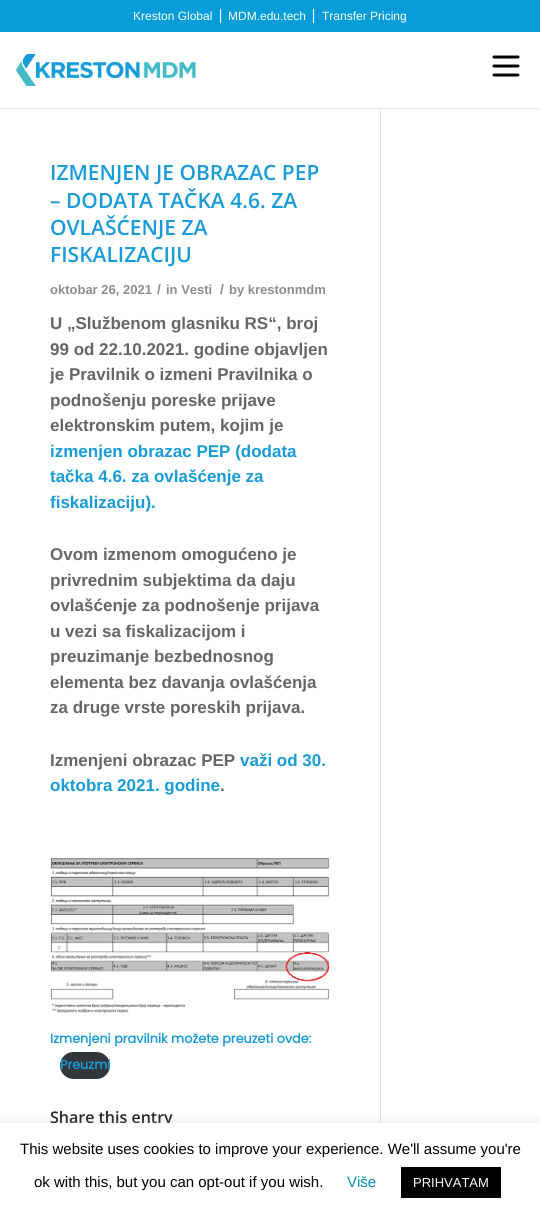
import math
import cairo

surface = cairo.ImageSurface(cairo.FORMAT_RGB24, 540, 1215)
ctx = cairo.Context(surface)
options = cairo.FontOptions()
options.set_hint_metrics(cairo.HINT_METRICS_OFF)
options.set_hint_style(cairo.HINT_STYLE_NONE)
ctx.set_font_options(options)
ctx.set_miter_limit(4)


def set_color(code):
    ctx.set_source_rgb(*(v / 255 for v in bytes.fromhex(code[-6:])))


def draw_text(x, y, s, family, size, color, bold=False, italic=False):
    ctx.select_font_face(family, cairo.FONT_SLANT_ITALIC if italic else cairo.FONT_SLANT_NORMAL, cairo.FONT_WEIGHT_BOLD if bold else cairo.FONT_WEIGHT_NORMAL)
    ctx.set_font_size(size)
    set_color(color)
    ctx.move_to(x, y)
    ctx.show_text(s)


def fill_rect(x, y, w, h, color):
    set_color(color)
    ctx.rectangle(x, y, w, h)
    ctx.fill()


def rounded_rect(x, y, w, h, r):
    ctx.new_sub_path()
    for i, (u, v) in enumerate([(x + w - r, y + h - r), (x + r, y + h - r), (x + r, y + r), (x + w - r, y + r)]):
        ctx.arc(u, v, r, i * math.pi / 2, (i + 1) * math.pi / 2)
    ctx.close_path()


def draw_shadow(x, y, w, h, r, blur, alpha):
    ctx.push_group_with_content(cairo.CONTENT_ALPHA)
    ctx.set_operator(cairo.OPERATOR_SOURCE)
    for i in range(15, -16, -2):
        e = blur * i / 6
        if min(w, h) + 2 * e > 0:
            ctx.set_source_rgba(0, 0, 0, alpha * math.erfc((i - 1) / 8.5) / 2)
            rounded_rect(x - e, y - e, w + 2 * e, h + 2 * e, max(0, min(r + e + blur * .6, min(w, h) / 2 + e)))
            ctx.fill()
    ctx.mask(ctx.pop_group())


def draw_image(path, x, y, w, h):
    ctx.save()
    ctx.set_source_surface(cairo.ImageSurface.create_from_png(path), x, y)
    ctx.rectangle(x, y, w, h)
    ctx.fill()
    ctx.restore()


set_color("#ffffff")
ctx.paint()
fill_rect(0, 0, 540, 32, "#069dd8")
draw_text(133, 20, "Kreston Global", "Liberation Sans", 12, "#ffffff")
fill_rect(220, 9, 1, 14, "#ffffff")
draw_text(228, 20, "MDM.edu.tech", "Liberation Sans", 12, "#ffffff")
fill_rect(313, 9, 1, 14, "#ffffff")
draw_text(322, 20, "Transfer Pricing", "Liberation Sans", 12, "#ffffff")
draw_image("assets/img1.png", 16, 54, 180, 32)
ctx.new_path()
ctx.move_to(494, 75)
ctx.line_to(518, 75)
ctx.move_to(494, 66)
ctx.line_to(518, 66)
ctx.move_to(494, 57)
ctx.line_to(518, 57)
set_color("#000000")
ctx.set_line_width(3)
ctx.set_line_cap(cairo.LINE_CAP_ROUND)
ctx.stroke()
fill_rect(0, 108, 540, 1, "#e1e1e1")
fill_rect(380, 109, 1, 1014, "#e1e1e1")
draw_text(50, 180, "IZMENJEN JE OBRAZAC PEP", "Open Sans SemiBold", 21, "#189bd8")
draw_text(50, 208, "– DODATA TAČKA 4.6. ZA", "Open Sans SemiBold", 21, "#189bd8")
draw_text(50, 235, "OVLAŠĆENJE ZA", "Open Sans SemiBold", 21, "#189bd8")
draw_text(50, 262, "FISKALIZACIJU", "Open Sans SemiBold", 21, "#189bd8")
draw_text(50, 294, "oktobar 26, 2021", "Liberation Sans", 13, "#8d8d8d", bold=True)
draw_text(157, 294, "/", "Liberation Sans", 14, "#8d8d8d", bold=True)
draw_text(166, 294, "in Vesti", "Liberation Sans", 13, "#8d8d8d", bold=True)
draw_text(220, 294, "/", "Liberation Sans", 14, "#8d8d8d", bold=True)
draw_text(229, 294, "by krestonmdm", "Liberation Sans", 13, "#8d8d8d", bold=True)
draw_text(50, 329, "U „Službenom glasniku RS“, broj", "Liberation Sans", 17, "#666666", bold=True)
draw_text(50, 355, "99 od 22.10.2021. godine objavljen", "Liberation Sans", 17, "#666666", bold=True)
draw_text(50, 380, "je Pravilnik o izmeni Pravilnika o", "Liberation Sans", 17, "#666666", bold=True)
draw_text(50, 406, "podnošenju poreske prijave", "Liberation Sans", 17, "#666666", bold=True)
draw_text(50, 431, "elektronskim putem, kojim je", "Liberation Sans", 17, "#666666", bold=True)
draw_text(50, 457, "izmenjen obrazac PEP (dodata", "Liberation Sans", 17, "#189bd8", bold=True)
draw_text(50, 482, "tačka 4.6. za ovlašćenje za", "Liberation Sans", 17, "#189bd8", bold=True)
draw_text(50, 508, "fiskalizaciju).", "Liberation Sans", 17, "#189bd8", bold=True)
draw_text(50, 560, "Ovom izmenom omogućeno je", "Liberation Sans", 17, "#666666", bold=True)
draw_text(50, 586, "privrednim subjektima da daju", "Liberation Sans", 17, "#666666", bold=True)
draw_text(50, 611, "ovlašćenje za podnošenje prijava", "Liberation Sans", 17, "#666666", bold=True)
draw_text(50, 637, "u vezi sa fiskalizacijom i", "Liberation Sans", 17, "#666666", bold=True)
draw_text(50, 662, "preuzimanje bezbednosnog", "Liberation Sans", 17, "#666666", bold=True)
draw_text(50, 688, "elementa bez davanja ovlašćenja", "Liberation Sans", 17, "#666666", bold=True)
draw_text(50, 713, "za druge vrste poreskih prijava.", "Liberation Sans", 17, "#666666", bold=True)
draw_text(50, 766, "Izmenjeni obrazac PEP", "Liberation Sans", 17, "#666666", bold=True)
draw_text(240, 766, "važi od 30.", "Liberation Sans", 17, "#189bd8", bold=True)
draw_text(50, 791, "oktobra 2021. godine", "Liberation Sans", 17, "#189bd8", bold=True)
draw_text(220, 791, ".", "Liberation Sans", 17, "#666666", bold=True)
draw_image("assets/img2.png", 50, 858, 280, 156)
draw_text(50, 1043, "Izmenjeni pravilnik možete preuzeti ovde:", "Poppins", 12.8, "#189bd8", bold=True)
set_color("#32373c")
rounded_rect(60, 1052, 50, 27, 13.5)
ctx.fill()
draw_text(60, 1069, "Preuzmi", "Poppins", 12.8, "#189bd8", bold=True)
draw_text(50, 1123, "Share this entry", "Open Sans SemiBold", 16, "#222222")
set_color("#acabab")
draw_shadow(0, 1122, 540, 92, 0, 5, 0.3)
fill_rect(0, 1123, 540, 92, "#ffffff")
draw_text(20, 1154, "This website uses cookies to improve your experience. We'll assume you're", "Liberation Sans", 15, "#000000")
draw_text(34, 1187, "ok with this, but you can opt-out if you wish.", "Liberation Sans", 15, "#000000")
draw_text(347, 1187, "Više", "Liberation Sans", 15, "#008fc0")
fill_rect(401, 1167, 100, 31, "#000000")
draw_text(413, 1187, "PRIHVATAM", "Liberation Sans", 13, "#ffffff")
surface.write_to_png("output.png")
